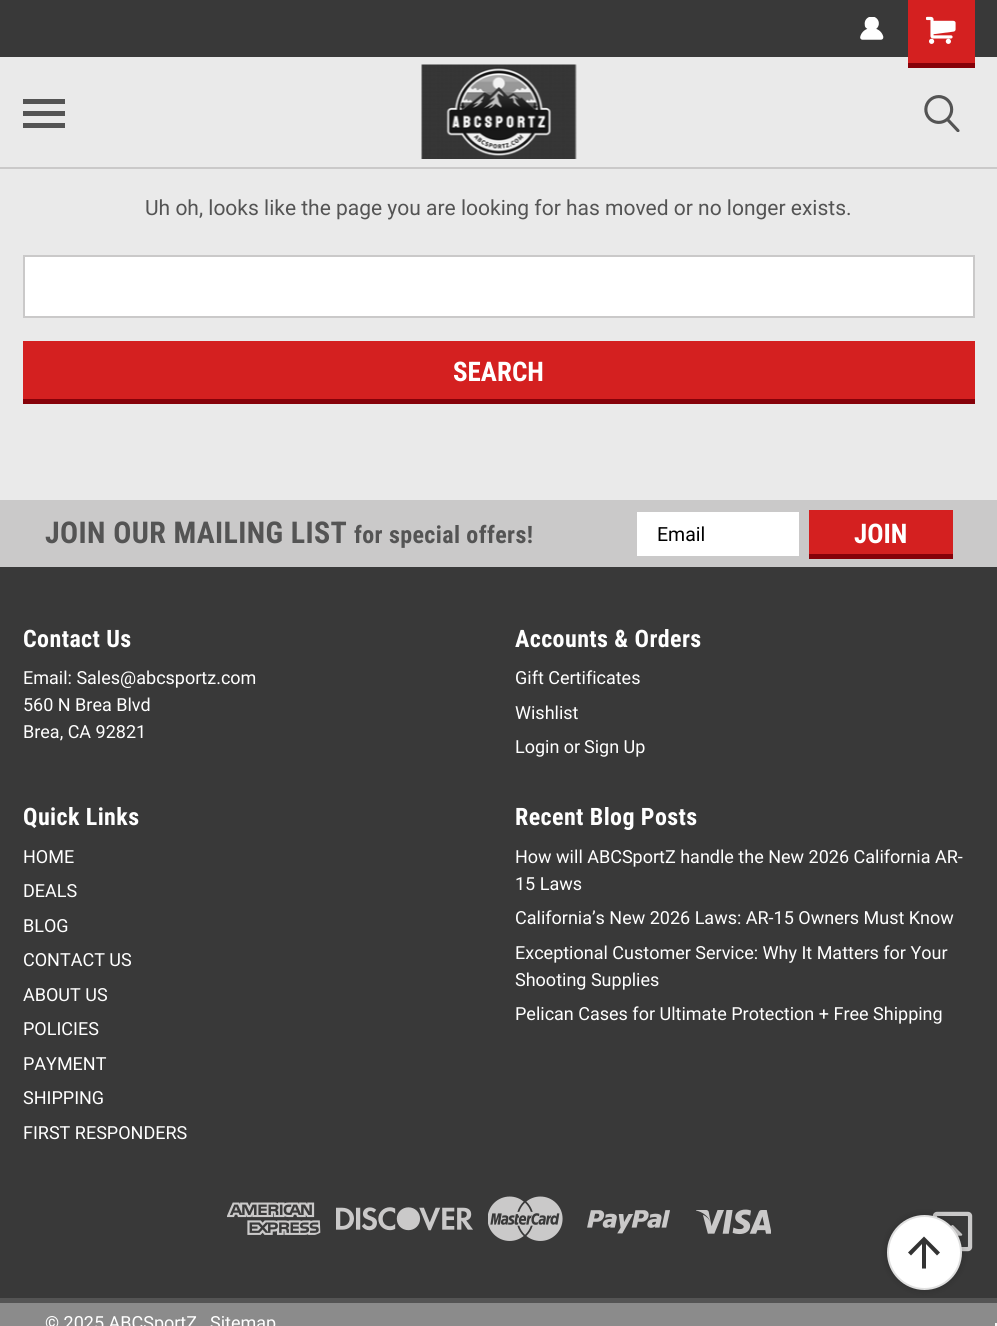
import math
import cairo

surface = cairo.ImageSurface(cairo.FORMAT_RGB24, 997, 1326)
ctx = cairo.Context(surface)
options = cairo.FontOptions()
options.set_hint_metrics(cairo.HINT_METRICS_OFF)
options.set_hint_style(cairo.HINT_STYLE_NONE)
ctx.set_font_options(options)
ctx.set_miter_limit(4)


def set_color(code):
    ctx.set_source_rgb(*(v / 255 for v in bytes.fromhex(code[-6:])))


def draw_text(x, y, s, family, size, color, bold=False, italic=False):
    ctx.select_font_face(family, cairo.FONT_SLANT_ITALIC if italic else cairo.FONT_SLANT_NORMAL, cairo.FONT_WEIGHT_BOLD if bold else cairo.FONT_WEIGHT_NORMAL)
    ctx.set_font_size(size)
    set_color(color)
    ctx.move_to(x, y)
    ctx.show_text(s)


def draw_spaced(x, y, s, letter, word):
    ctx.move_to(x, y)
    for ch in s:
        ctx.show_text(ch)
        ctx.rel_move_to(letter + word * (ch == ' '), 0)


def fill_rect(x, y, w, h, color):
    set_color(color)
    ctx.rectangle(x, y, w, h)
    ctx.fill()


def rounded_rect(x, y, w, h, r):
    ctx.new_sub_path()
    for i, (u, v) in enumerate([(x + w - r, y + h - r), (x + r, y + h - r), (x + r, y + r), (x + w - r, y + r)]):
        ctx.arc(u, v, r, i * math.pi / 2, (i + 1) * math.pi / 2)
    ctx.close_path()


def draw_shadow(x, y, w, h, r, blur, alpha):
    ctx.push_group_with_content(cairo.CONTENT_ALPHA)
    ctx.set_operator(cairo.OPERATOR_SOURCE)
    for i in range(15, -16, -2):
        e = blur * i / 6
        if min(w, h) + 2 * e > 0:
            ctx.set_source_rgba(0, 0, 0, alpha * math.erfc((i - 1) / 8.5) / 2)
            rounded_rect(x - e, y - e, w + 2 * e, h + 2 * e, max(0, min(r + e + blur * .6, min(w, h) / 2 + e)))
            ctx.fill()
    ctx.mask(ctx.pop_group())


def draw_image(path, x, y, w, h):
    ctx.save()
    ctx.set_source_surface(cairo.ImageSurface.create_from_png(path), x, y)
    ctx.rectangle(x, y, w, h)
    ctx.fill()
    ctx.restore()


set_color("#eaeaea")
ctx.paint()
fill_rect(0, 167, 997, 2, "#cac9c9")
fill_rect(0, 0, 997, 57, "#393939")
draw_image("assets/img1.png", 860, 17, 24, 23)
fill_rect(908, 0, 67, 63, "#d42020")
fill_rect(908, 63, 67, 5, "#860109")
draw_image("assets/img2.png", 926, 16, 30, 28)
fill_rect(23, 111, 42, 5, "#545454")
fill_rect(23, 99, 42, 5, "#545454")
fill_rect(23, 123, 42, 5, "#545454")
draw_image("assets/img3.png", 421, 64, 156, 95)
draw_image("assets/img4.png", 924, 95, 36, 37)
draw_text(145, 215, "Uh oh, looks like the page you are looking for has moved or no longer exists.", "Roboto", 21, "#545454")
set_color("#ffffff")
ctx.rectangle(24, 256, 950, 61)
ctx.fill_preserve()
set_color("#cac9c9")
ctx.stroke()
fill_rect(23, 341, 952, 58, "#d42020")
fill_rect(23, 399, 952, 5, "#860109")
draw_text(453, 381, "SEARCH", "Roboto Condensed", 27, "#ffffff", bold=True)
fill_rect(0, 567, 997, 731, "#393939")
fill_rect(0, 500, 997, 67, "#cac9c9")
ctx.set_font_size(30)
set_color("#545454")
draw_spaced(45, 543, "JOIN OUR MAILING LIST", 0.4, 0)
ctx.set_font_size(24)
draw_spaced(354, 543, "for special offers!", 0.4, 0)
fill_rect(637, 512, 162, 44, "#ffffff")
draw_text(657, 541, "Email", "Roboto", 19.5, "#000000")
fill_rect(809, 510, 144, 44, "#d42020")
fill_rect(809, 554, 144, 5, "#860109")
draw_text(854, 543, "JOIN", "Roboto Condensed", 27, "#ffffff", bold=True)
ctx.set_font_size(24)
draw_spaced(23, 647, "Contact Us", 0.4, 0)
draw_text(23, 684, "Email: Sales@abcsportz.com", "Roboto", 18, "#ffffff")
draw_text(23, 711, "560 N Brea Blvd", "Roboto", 18, "#ffffff")
draw_text(23, 738, "Brea, CA 92821", "Roboto", 18, "#ffffff")
ctx.select_font_face("Roboto Condensed", cairo.FONT_SLANT_NORMAL, cairo.FONT_WEIGHT_BOLD)
ctx.set_font_size(24)
draw_spaced(515, 647, "Accounts & Orders", 0.4, 0)
draw_text(515, 684, "Gift Certificates", "Roboto", 18, "#ffffff")
draw_text(515, 719, "Wishlist", "Roboto", 18, "#ffffff")
draw_text(515, 753, "Login or", "Roboto", 18, "#ffffff")
draw_text(584, 753, "Sign Up", "Roboto", 18, "#ffffff")
ctx.select_font_face("Roboto Condensed", cairo.FONT_SLANT_NORMAL, cairo.FONT_WEIGHT_BOLD)
ctx.set_font_size(24)
draw_spaced(23, 825, "Quick Links", 0.4, 0)
draw_text(23, 863, "HOME", "Roboto", 18, "#ffffff")
draw_text(23, 897, "DEALS", "Roboto", 18, "#ffffff")
draw_text(23, 932, "BLOG", "Roboto", 18, "#ffffff")
draw_text(23, 966, "CONTACT US", "Roboto", 18, "#ffffff")
draw_text(23, 1001, "ABOUT US", "Roboto", 18, "#ffffff")
draw_text(23, 1035, "POLICIES", "Roboto", 18, "#ffffff")
draw_text(23, 1070, "PAYMENT", "Roboto", 18, "#ffffff")
draw_text(23, 1104, "SHIPPING", "Roboto", 18, "#ffffff")
draw_text(23, 1139, "FIRST RESPONDERS", "Roboto", 18, "#ffffff")
ctx.select_font_face("Roboto Condensed", cairo.FONT_SLANT_NORMAL, cairo.FONT_WEIGHT_BOLD)
ctx.set_font_size(24)
draw_spaced(515, 825, "Recent Blog Posts", 0.4, 0)
draw_text(515, 863, "How will ABCSportZ handle the New 2026 California AR-", "Roboto", 18, "#ffffff")
draw_text(515, 890, "15 Laws", "Roboto", 18, "#ffffff")
draw_text(515, 924, "California’s New 2026 Laws: AR-15 Owners Must Know", "Roboto", 18, "#ffffff")
draw_text(515, 959, "Exceptional Customer Service: Why It Matters for Your", "Roboto", 18, "#ffffff")
draw_text(515, 986, "Shooting Supplies", "Roboto", 18, "#ffffff")
draw_text(515, 1020, "Pelican Cases for Ultimate Protection + Free Shipping", "Roboto", 18, "#ffffff")
draw_image("assets/img5.png", 227, 1202, 94, 33)
draw_image("assets/img6.png", 336, 1207, 137, 24)
draw_image("assets/img7.png", 488, 1196, 75, 45)
draw_image("assets/img8.png", 587, 1210, 83, 24)
draw_image("assets/img9.png", 696, 1209, 75, 26)
draw_image("assets/img10.png", 932, 1211, 41, 41)
fill_rect(0, 1303, 997, 23, "#8b8b8b")
fill_rect(0, 1298, 997, 5, "#545454")
draw_text(45, 1329, "© 2025 ABCSportZ", "Roboto", 18, "#ffffff")
draw_text(210, 1329, "Sitemap", "Roboto", 18, "#ffffff")
set_color("#000000")
draw_shadow(887, 1215, 75, 75, 37.5, 4, 0.2)
set_color("#ffffff")
ctx.arc(924.5, 1252.5, 36.5, 0, 2 * math.pi)
ctx.fill_preserve()
set_color("#e0e0e0")
ctx.stroke()
set_color("#333333")
ctx.new_path()
ctx.move_to(922, 1268.5)
ctx.line_to(922, 1244)
ctx.line_to(911, 1255.5)
ctx.line_to(908, 1252.5)
ctx.line_to(924, 1236.5)
ctx.line_to(940, 1252.5)
ctx.line_to(937, 1255.5)
ctx.line_to(926, 1244)
ctx.line_to(926, 1268.5)
ctx.close_path()
ctx.fill()
fill_rect(995, 1323, 2, 3, "#f5f5f5")
surface.write_to_png("output.png")
